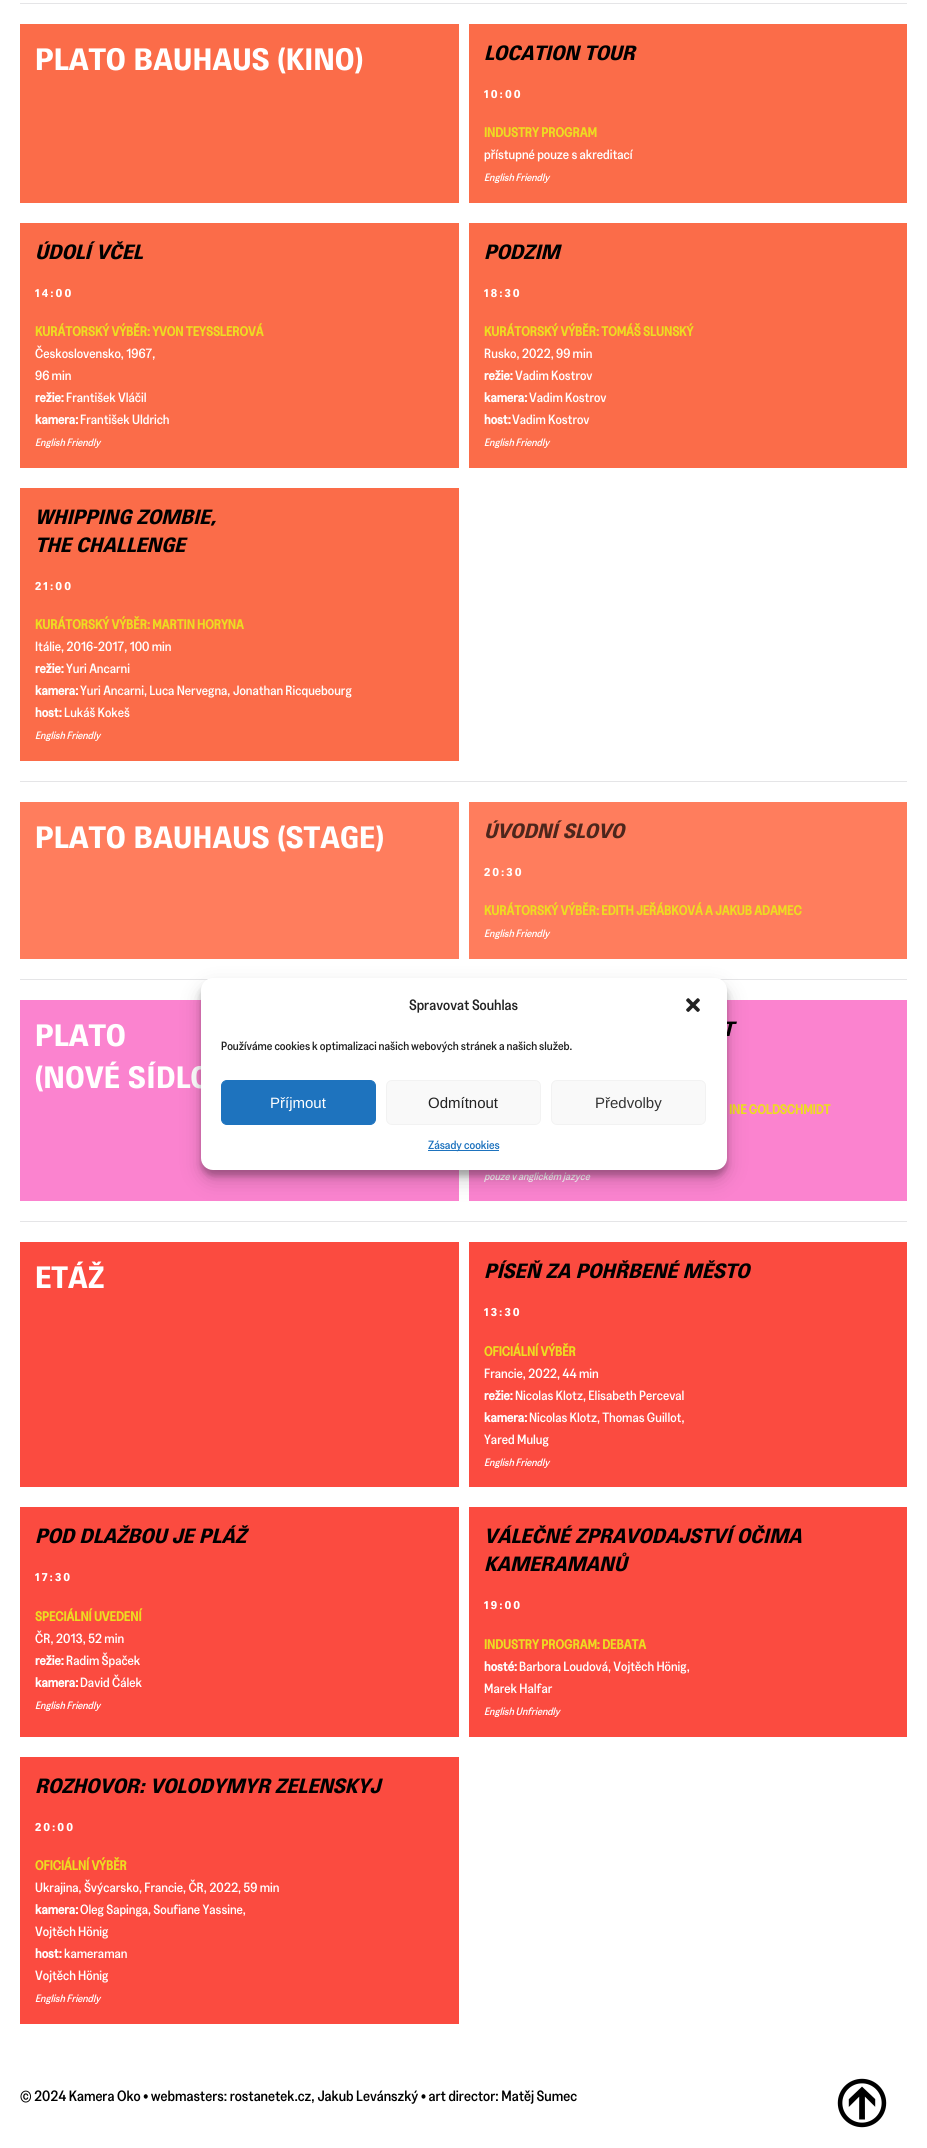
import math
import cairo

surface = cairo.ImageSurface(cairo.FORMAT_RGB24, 927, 2148)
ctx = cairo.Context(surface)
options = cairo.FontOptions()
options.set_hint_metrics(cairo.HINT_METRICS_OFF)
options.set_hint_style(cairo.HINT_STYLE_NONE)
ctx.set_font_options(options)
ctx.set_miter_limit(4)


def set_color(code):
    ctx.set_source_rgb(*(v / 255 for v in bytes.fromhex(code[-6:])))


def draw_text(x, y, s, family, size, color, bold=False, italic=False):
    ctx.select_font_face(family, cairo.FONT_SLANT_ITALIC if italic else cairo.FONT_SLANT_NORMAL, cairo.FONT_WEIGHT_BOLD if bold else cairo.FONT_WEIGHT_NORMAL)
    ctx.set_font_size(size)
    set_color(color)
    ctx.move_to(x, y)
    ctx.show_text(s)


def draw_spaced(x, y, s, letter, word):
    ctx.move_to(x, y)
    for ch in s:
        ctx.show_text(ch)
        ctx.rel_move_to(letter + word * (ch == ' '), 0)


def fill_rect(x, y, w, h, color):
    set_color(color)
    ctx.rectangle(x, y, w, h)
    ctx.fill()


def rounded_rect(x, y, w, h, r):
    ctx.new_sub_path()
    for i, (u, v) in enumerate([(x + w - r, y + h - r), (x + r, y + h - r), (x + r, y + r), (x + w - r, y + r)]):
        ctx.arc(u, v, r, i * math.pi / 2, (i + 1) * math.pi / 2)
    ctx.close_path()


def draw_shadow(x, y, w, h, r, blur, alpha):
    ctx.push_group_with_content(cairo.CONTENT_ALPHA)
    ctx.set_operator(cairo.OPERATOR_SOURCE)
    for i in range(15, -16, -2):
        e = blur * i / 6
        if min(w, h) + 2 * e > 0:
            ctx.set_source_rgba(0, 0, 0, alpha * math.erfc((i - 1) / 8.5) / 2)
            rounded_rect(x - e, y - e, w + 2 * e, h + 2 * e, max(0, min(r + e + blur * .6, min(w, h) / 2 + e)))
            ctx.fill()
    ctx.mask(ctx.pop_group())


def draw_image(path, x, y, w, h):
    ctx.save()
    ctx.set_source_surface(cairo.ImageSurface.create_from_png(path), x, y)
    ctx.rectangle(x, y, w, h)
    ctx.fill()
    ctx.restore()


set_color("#ffffff")
ctx.paint()
fill_rect(20, 3, 887, 1, "#e5e5e7")
fill_rect(20, 24, 439, 179, "#fb6c49")
draw_text(35, 70, "PLATO Bauhaus (kino)", "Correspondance", 30, "#ffffff")
fill_rect(469, 24, 438, 179, "#fb6c49")
draw_text(484, 60, "LOCATION TOUR", "Correspondance", 20, "#000000", italic=True)
ctx.select_font_face("Correspondance")
ctx.set_font_size(11)
set_color("#ffffff")
draw_spaced(484, 98, "10:00", 2, 0)
draw_text(484, 137, "INDUSTRY PROGRAM", "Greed", 13.5, "#eddc21", bold=True)
draw_text(484, 159, "přístupné pouze s akreditací", "Greed Medium", 13.5, "#ffffff")
draw_text(484, 181, "English Friendly", "Greed Medium", 10.75, "#ffffff", italic=True)
fill_rect(20, 223, 439, 245, "#fb6c49")
draw_text(35, 259, "ÚDOLÍ VČEL", "Correspondance", 20, "#000000", italic=True)
ctx.select_font_face("Correspondance")
ctx.set_font_size(11)
set_color("#ffffff")
draw_spaced(35, 297, "14:00", 2, 0)
draw_text(35, 336, "KURÁTORSKÝ VÝBĚR: YVON TEYSSLEROVÁ", "Greed", 13.5, "#eddc21", bold=True)
draw_text(35, 358, "Československo, 1967,", "Greed Medium", 13.5, "#ffffff")
draw_text(35, 380, "96 min", "Greed Medium", 13.5, "#ffffff")
draw_text(35, 402, "režie:", "Greed", 13.5, "#ffffff", bold=True)
draw_text(66, 402, "František Vláčil", "Greed Medium", 13.5, "#ffffff")
draw_text(35, 424, "kamera:", "Greed", 13.5, "#ffffff", bold=True)
draw_text(80, 424, "František Uldrich", "Greed Medium", 13.5, "#ffffff")
draw_text(35, 446, "English Friendly", "Greed Medium", 10.75, "#ffffff", italic=True)
fill_rect(469, 223, 438, 245, "#fb6c49")
draw_text(484, 259, "PODZIM", "Correspondance", 20, "#000000", italic=True)
ctx.select_font_face("Correspondance")
ctx.set_font_size(11)
set_color("#ffffff")
draw_spaced(484, 297, "18:30", 2, 0)
draw_text(484, 336, "KURÁTORSKÝ VÝBĚR: TOMÁŠ SLUNSKÝ", "Greed", 13.5, "#eddc21", bold=True)
draw_text(484, 358, "Rusko, 2022, 99 min", "Greed Medium", 13.5, "#ffffff")
draw_text(484, 380, "režie:", "Greed", 13.5, "#ffffff", bold=True)
draw_text(515, 380, "Vadim Kostrov", "Greed Medium", 13.5, "#ffffff")
draw_text(484, 402, "kamera:", "Greed", 13.5, "#ffffff", bold=True)
draw_text(529, 402, "Vadim Kostrov", "Greed Medium", 13.5, "#ffffff")
draw_text(484, 424, "host:", "Greed", 13.5, "#ffffff", bold=True)
draw_text(512, 424, "Vadim Kostrov", "Greed Medium", 13.5, "#ffffff")
draw_text(484, 446, "English Friendly", "Greed Medium", 10.75, "#ffffff", italic=True)
fill_rect(20, 488, 439, 273, "#fb6c49")
draw_text(35, 524, "WHIPPING ZOMBIE,", "Correspondance", 20, "#000000", italic=True)
draw_text(35, 552, "THE CHALLENGE", "Correspondance", 20, "#000000", italic=True)
ctx.select_font_face("Correspondance")
ctx.set_font_size(11)
set_color("#ffffff")
draw_spaced(35, 590, "21:00", 2, 0)
draw_text(35, 629, "KURÁTORSKÝ VÝBĚR: MARTIN HORYNA", "Greed", 13.5, "#eddc21", bold=True)
draw_text(35, 651, "Itálie, 2016-2017, 100 min", "Greed Medium", 13.5, "#ffffff")
draw_text(35, 673, "režie:", "Greed", 13.5, "#ffffff", bold=True)
draw_text(66, 673, "Yuri Ancarni", "Greed Medium", 13.5, "#ffffff")
draw_text(35, 695, "kamera:", "Greed", 13.5, "#ffffff", bold=True)
draw_text(80, 695, "Yuri Ancarni, Luca Nervegna, Jonathan Ricquebourg", "Greed Medium", 13.5, "#ffffff")
draw_text(35, 717, "host:", "Greed", 13.5, "#ffffff", bold=True)
draw_text(64, 717, "Lukáš Kokeš", "Greed Medium", 13.5, "#ffffff")
draw_text(35, 739, "English Friendly", "Greed Medium", 10.75, "#ffffff", italic=True)
fill_rect(20, 781, 887, 1, "#e5e5e7")
fill_rect(20, 802, 439, 157, "#ff7d5d")
draw_text(35, 848, "PLATO Bauhaus (stage)", "Correspondance", 30, "#ffffff")
fill_rect(469, 802, 438, 157, "#ff7d5d")
draw_text(484, 838, "ÚVODNÍ SLOVO", "Correspondance", 20, "#4d261c", italic=True)
ctx.select_font_face("Correspondance")
ctx.set_font_size(11)
set_color("#ffffff")
draw_spaced(484, 876, "20:30", 2, 0)
draw_text(484, 915, "KURÁTORSKÝ VÝBĚR: EDITH JEŘÁBKOVÁ A JAKUB ADAMEC", "Greed", 13.5, "#eddc21", bold=True)
draw_text(484, 937, "English Friendly", "Greed Medium", 10.75, "#ffffff", italic=True)
fill_rect(20, 979, 887, 1, "#e5e5e7")
fill_rect(20, 1000, 439, 201, "#fb83cf")
draw_text(35, 1046, "PLATO", "Correspondance", 30, "#ffffff")
draw_text(35, 1088, "(nové sídlo", "Correspondance", 30, "#ffffff")
fill_rect(469, 1000, 438, 201, "#fb83cf")
draw_text(722, 1036, "T", "Correspondance", 20, "#000000", italic=True)
draw_text(729, 1114, "INE GOLDSCHMIDT", "Greed", 13.5, "#eddc21", bold=True)
draw_text(484, 1180, "pouze v anglickém jazyce", "Greed Medium", 10.75, "#ffffff", italic=True)
fill_rect(20, 1221, 887, 1, "#e5e5e7")
fill_rect(20, 1242, 439, 245, "#fb4b40")
draw_text(35, 1288, "Etáž", "Correspondance", 30, "#ffffff")
fill_rect(469, 1242, 438, 245, "#fb4b40")
draw_text(484, 1278, "PÍSEŇ ZA POHŘBENÉ MĚSTO", "Correspondance", 20, "#000000", italic=True)
ctx.select_font_face("Correspondance")
ctx.set_font_size(11)
set_color("#ffffff")
draw_spaced(484, 1316, "13:30", 2, 0)
draw_text(484, 1356, "OFICIÁLNÍ VÝBĚR", "Greed", 13.5, "#eddc21", bold=True)
draw_text(484, 1378, "Francie, 2022, 44 min", "Greed Medium", 13.5, "#ffffff")
draw_text(484, 1400, "režie:", "Greed", 13.5, "#ffffff", bold=True)
draw_text(515, 1400, "Nicolas Klotz, Elisabeth Perceval", "Greed Medium", 13.5, "#ffffff")
draw_text(484, 1422, "kamera:", "Greed", 13.5, "#ffffff", bold=True)
draw_text(529, 1422, "Nicolas Klotz, Thomas Guillot,", "Greed Medium", 13.5, "#ffffff")
draw_text(484, 1444, "Yared Mulug", "Greed Medium", 13.5, "#ffffff")
draw_text(484, 1466, "English Friendly", "Greed Medium", 10.75, "#ffffff", italic=True)
fill_rect(20, 1507, 439, 230, "#fb4b40")
draw_text(35, 1543, "POD DLAŽBOU JE PLÁŽ", "Correspondance", 20, "#000000", italic=True)
ctx.select_font_face("Correspondance")
ctx.set_font_size(11)
set_color("#ffffff")
draw_spaced(35, 1581, "17:30", 2, 0)
draw_text(35, 1621, "SPECIÁLNÍ UVEDENÍ", "Greed", 13.5, "#eddc21", bold=True)
draw_text(35, 1643, "ČR, 2013, 52 min", "Greed Medium", 13.5, "#ffffff")
draw_text(35, 1665, "režie:", "Greed", 13.5, "#ffffff", bold=True)
draw_text(66, 1665, "Radim Špaček", "Greed Medium", 13.5, "#ffffff")
draw_text(35, 1687, "kamera:", "Greed", 13.5, "#ffffff", bold=True)
draw_text(80, 1687, "David Čálek", "Greed Medium", 13.5, "#ffffff")
draw_text(35, 1709, "English Friendly", "Greed Medium", 10.75, "#ffffff", italic=True)
fill_rect(469, 1507, 438, 230, "#fb4b40")
draw_text(484, 1543, "VÁLEČNÉ ZPRAVODAJSTVÍ OČIMA", "Correspondance", 20, "#000000", italic=True)
draw_text(484, 1571, "KAMERAMANŮ", "Correspondance", 20, "#000000", italic=True)
ctx.select_font_face("Correspondance")
ctx.set_font_size(11)
set_color("#ffffff")
draw_spaced(484, 1609, "19:00", 2, 0)
draw_text(484, 1649, "INDUSTRY PROGRAM: DEBATA", "Greed", 13.5, "#eddc21", bold=True)
draw_text(484, 1671, "hosté:", "Greed", 13.5, "#ffffff", bold=True)
draw_text(519, 1671, "Barbora Loudová, Vojtěch Hönig,", "Greed Medium", 13.5, "#ffffff")
draw_text(484, 1693, "Marek Halfar", "Greed Medium", 13.5, "#ffffff")
draw_text(484, 1715, "English Unfriendly", "Greed Medium", 10.75, "#ffffff", italic=True)
fill_rect(20, 1757, 439, 267, "#fb4b40")
draw_text(35, 1793, "ROZHOVOR: VOLODYMYR ZELENSKYJ", "Correspondance", 20, "#000000", italic=True)
ctx.select_font_face("Correspondance")
ctx.set_font_size(11)
set_color("#ffffff")
draw_spaced(35, 1831, "20:00", 2, 0)
draw_text(35, 1870, "OFICIÁLNÍ VÝBĚR", "Greed", 13.5, "#eddc21", bold=True)
draw_text(35, 1892, "Ukrajina, Švýcarsko, Francie, ČR, 2022, 59 min", "Greed Medium", 13.5, "#ffffff")
draw_text(35, 1914, "kamera:", "Greed", 13.5, "#ffffff", bold=True)
draw_text(80, 1914, "Oleg Sapinga, Soufiane Yassine,", "Greed Medium", 13.5, "#ffffff")
draw_text(35, 1936, "Vojtěch Hönig", "Greed Medium", 13.5, "#ffffff")
draw_text(35, 1958, "host:", "Greed", 13.5, "#ffffff", bold=True)
draw_text(64, 1958, "kameraman", "Greed Medium", 13.5, "#ffffff")
draw_text(35, 1980, "Vojtěch Hönig", "Greed Medium", 13.5, "#ffffff")
draw_text(35, 2002, "English Friendly", "Greed Medium", 10.75, "#ffffff", italic=True)
draw_text(20, 2101, "© 2024 Kamera Oko • webmasters: rostanetek.cz, Jakub Levánszký • art director: Matěj Sumec", "Greed Medium", 15, "#000000")
set_color("#000000")
draw_shadow(201, 984, 526, 192, 12, 3, 0.23)
draw_shadow(201, 988, 526, 192, 12, 10, 0.19)
set_color("#ffffff")
rounded_rect(201, 978, 526, 192, 12)
ctx.fill()
draw_text(409, 1010, "Spravovat Souhlas", "Greed Medium", 15, "#222222")
draw_image("assets/img1.png", 686, 998, 14, 14)
draw_text(221, 1050, "Používáme cookies k optimalizaci našich webových stránek a našich služeb.", "Greed Medium", 12, "#222222")
set_color("#1e73be")
rounded_rect(221.5, 1080.5, 154, 44, 5.5)
ctx.fill_preserve()
ctx.set_line_width(1)
ctx.stroke()
draw_text(270, 1108, "Příjmout", "Liberation Sans", 15, "#ffffff")
set_color("#f9f9f9")
rounded_rect(386.5, 1080.5, 154, 44, 5.5)
ctx.fill_preserve()
set_color("#f2f2f2")
ctx.stroke()
draw_text(428, 1108, "Odmítnout", "Liberation Sans", 15, "#222222")
set_color("#f9f9f9")
rounded_rect(551.5, 1080.5, 154, 44, 5.5)
ctx.fill_preserve()
set_color("#f2f2f2")
ctx.stroke()
draw_text(595, 1108, "Předvolby", "Liberation Sans", 15, "#333333")
fill_rect(428, 1150, 71, 1, "#1e73be")
draw_text(428, 1149, "Zásady cookies", "Greed Medium", 12, "#1e73be")
draw_image("assets/img2.png", 837, 2078, 50, 50)
surface.write_to_png("output.png")
